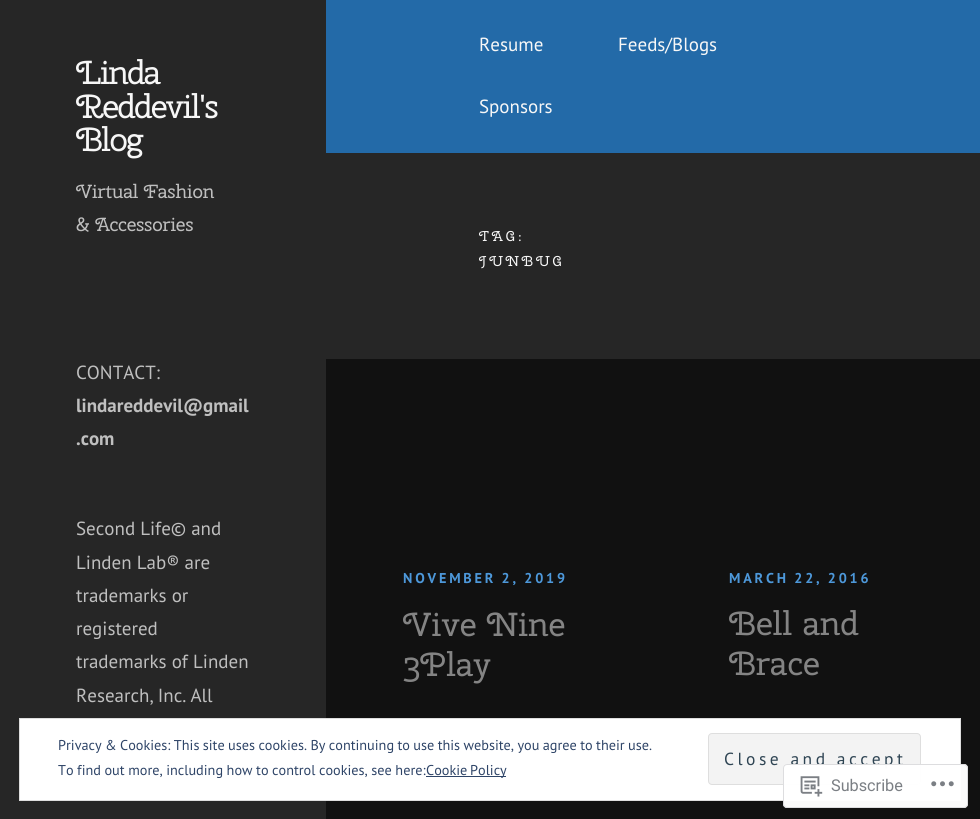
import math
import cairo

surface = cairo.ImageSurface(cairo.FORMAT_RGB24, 980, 819)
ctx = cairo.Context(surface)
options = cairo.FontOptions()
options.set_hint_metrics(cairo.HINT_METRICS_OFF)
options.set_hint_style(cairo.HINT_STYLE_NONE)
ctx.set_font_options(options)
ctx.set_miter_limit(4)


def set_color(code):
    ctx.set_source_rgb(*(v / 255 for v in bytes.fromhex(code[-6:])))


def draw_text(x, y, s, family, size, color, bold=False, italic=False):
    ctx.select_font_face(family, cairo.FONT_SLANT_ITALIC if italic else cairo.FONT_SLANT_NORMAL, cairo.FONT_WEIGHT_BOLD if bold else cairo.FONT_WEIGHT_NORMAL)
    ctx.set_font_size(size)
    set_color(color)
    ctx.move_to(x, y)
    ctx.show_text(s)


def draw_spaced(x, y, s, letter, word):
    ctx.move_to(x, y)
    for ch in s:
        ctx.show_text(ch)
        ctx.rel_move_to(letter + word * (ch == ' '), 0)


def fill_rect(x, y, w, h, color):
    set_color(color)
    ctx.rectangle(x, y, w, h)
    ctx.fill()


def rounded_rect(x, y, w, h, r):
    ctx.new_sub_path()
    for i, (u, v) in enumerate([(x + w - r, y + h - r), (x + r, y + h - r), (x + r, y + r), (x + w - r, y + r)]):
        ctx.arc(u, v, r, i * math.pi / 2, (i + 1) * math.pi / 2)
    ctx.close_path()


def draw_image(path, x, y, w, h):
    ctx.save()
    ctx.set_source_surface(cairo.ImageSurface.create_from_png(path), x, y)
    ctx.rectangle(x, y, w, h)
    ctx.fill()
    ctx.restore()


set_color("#262626")
ctx.paint()
ctx.select_font_face("Cherry Swash")
ctx.set_font_size(33.25)
set_color("#f7f7f7")
draw_spaced(76, 84, "Linda", -1.75, 0)
draw_spaced(76, 118, "Reddevil's", -1.75, 0)
draw_spaced(76, 151, "Blog", -1.75, 0)
ctx.set_font_size(19)
set_color("#bfbfbf")
draw_spaced(76, 198, "Virtual Fashion", -0.25, 0)
draw_spaced(76, 231, "& Accessories", -0.25, 0)
fill_rect(326, 0, 654, 153, "#236aa8")
draw_text(479, 51, "Resume", "PT Sans", 19, "#f7f7f7")
draw_text(618, 51, "Feeds/Blogs", "PT Sans", 19, "#f7f7f7")
draw_text(479, 113, "Sponsors", "PT Sans", 19, "#f7f7f7")
ctx.select_font_face("Cherry Swash")
ctx.set_font_size(14.25)
draw_spaced(479, 241, "TAG:", 2.8, 0)
draw_spaced(479, 266, "JUNBUG", 2.8, 0)
fill_rect(326, 359, 654, 460, "#111111")
ctx.select_font_face("PT Sans", cairo.FONT_SLANT_NORMAL, cairo.FONT_WEIGHT_BOLD)
set_color("#4d98da")
draw_spaced(403, 583, "NOVEMBER 2, 2019", 2.8, -1)
draw_text(403, 636, "Vive Nine", "Cherry Swash", 33.25, "#848484")
draw_text(403, 676, "3Play", "Cherry Swash", 33.25, "#848484")
ctx.select_font_face("PT Sans", cairo.FONT_SLANT_NORMAL, cairo.FONT_WEIGHT_BOLD)
ctx.set_font_size(14.25)
set_color("#4d98da")
draw_spaced(729, 583, "MARCH 22, 2016", 2.8, -1)
draw_text(729, 635, "Bell and", "Cherry Swash", 33.25, "#848484")
draw_text(729, 675, "Brace", "Cherry Swash", 33.25, "#848484")
draw_text(76, 379, "CONTACT:", "PT Sans", 19, "#bfbfbf")
draw_text(76, 412, "lindareddevil@gmail", "PT Sans", 19, "#bfbfbf", bold=True)
draw_text(76, 445, ".com", "PT Sans", 19, "#bfbfbf", bold=True)
draw_text(76, 535, "Second Life© and", "PT Sans", 19, "#bfbfbf")
draw_text(76, 569, "Linden Lab® are", "PT Sans", 19, "#bfbfbf")
draw_text(76, 602, "trademarks or", "PT Sans", 19, "#bfbfbf")
draw_text(76, 635, "registered", "PT Sans", 19, "#bfbfbf")
draw_text(76, 668, "trademarks of Linden", "PT Sans", 19, "#bfbfbf")
draw_spaced(76, 702, "Research, Inc. All", 0, -1)
set_color("#ffffff")
ctx.rectangle(19.5, 718.5, 941, 82)
ctx.fill_preserve()
set_color("#dedede")
ctx.set_line_width(1)
ctx.stroke()
ctx.set_font_size(14.25)
set_color("#2e4467")
draw_spaced(58, 750, "Privacy & Cookies: This site uses cookies. By continuing to use this website, you agree to their use.", 0, -0.4)
set_color("#f3f3f3")
rounded_rect(708.5, 733.5, 212, 51, 3.5)
ctx.fill_preserve()
set_color("#dedede")
ctx.stroke()
ctx.set_font_size(17.5)
set_color("#2e4453")
draw_spaced(724, 765, "Close and accept", 3.5, 0)
ctx.set_font_size(14.25)
set_color("#2e4467")
draw_spaced(58, 775, "To find out more, including how to control cookies, see here:", 0, -0.25)
fill_rect(426, 776, 80, 1, "#2e4467")
draw_spaced(426, 775, "Cookie Policy", 0, -1)
ctx.set_source_rgba(1, 1, 1, 0.98)
rounded_rect(783, 764, 185, 44, 4)
ctx.fill()
rounded_rect(783.5, 764.5, 184, 43, 3.5)
ctx.set_source_rgba(0.863, 0.863, 0.871, 0.98)
ctx.stroke()
draw_image("assets/img1.png", 800, 776, 23, 21)
draw_text(831, 791, "Subscribe", "Roboto", 16.25, "#7b7f84")
draw_image("assets/img2.png", 931, 781, 23, 6)
surface.write_to_png("output.png")
